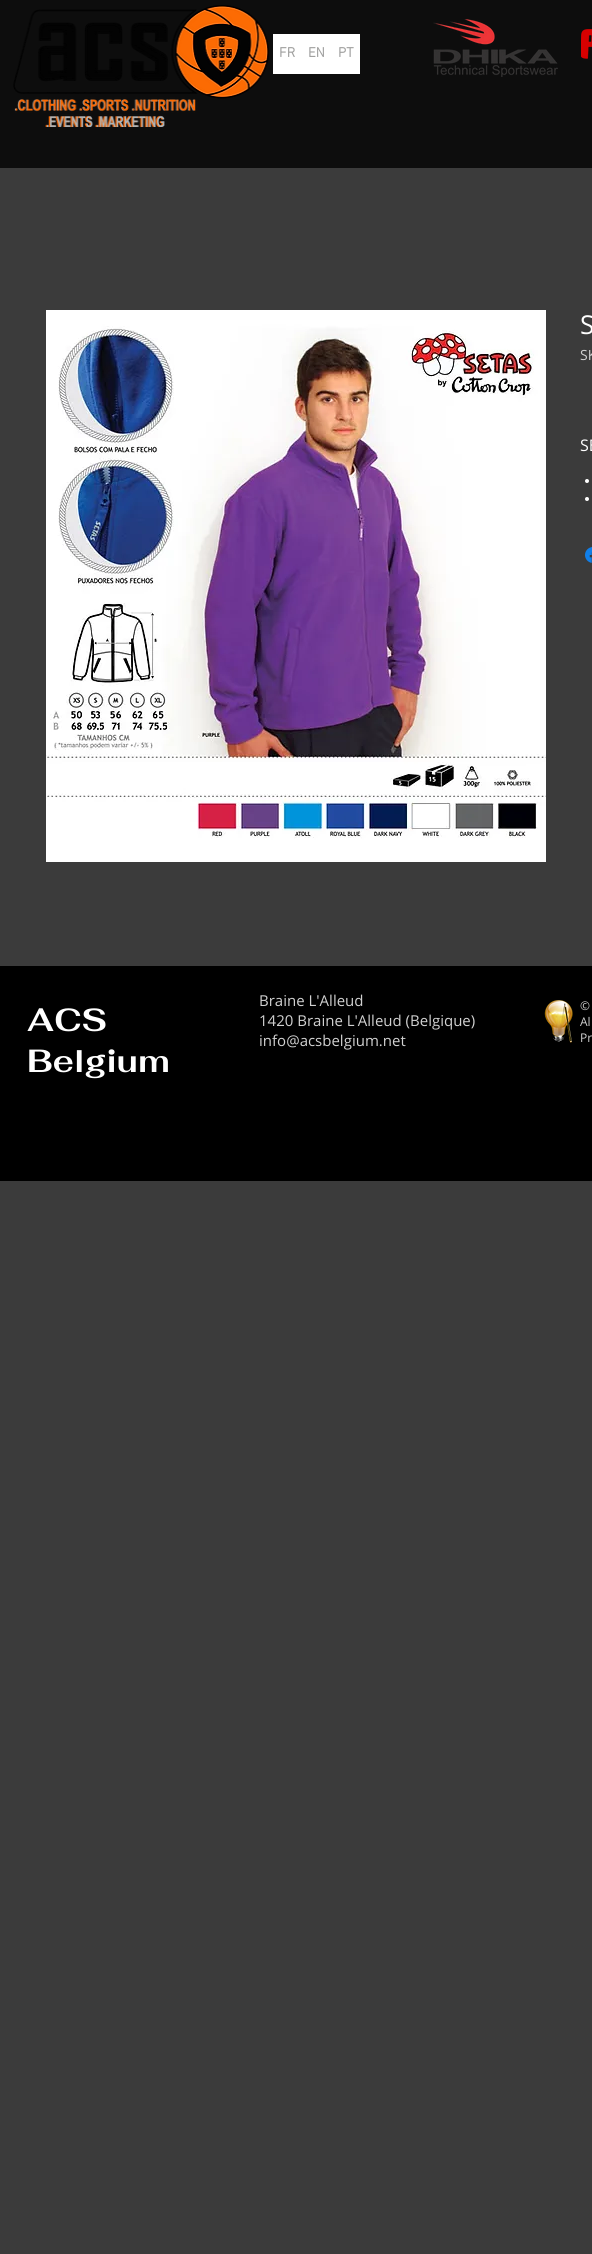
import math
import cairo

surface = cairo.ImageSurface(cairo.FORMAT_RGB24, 592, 2254)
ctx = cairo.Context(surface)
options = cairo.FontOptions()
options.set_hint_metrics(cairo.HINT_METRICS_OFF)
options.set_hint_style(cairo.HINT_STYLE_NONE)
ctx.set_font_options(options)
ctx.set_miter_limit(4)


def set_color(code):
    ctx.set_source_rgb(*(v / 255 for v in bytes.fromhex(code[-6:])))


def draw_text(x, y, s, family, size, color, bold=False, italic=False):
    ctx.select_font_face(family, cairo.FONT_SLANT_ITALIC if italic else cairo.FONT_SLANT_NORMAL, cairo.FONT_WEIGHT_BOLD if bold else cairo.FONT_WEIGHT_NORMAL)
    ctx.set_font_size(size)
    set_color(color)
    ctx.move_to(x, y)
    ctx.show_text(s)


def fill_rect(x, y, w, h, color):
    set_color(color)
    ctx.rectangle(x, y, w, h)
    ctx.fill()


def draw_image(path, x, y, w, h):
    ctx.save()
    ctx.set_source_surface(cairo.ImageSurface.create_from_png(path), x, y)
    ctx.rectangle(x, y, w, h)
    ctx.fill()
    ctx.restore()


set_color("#3b3b3b")
ctx.paint()
fill_rect(0, 0, 592, 168, "#0d0d0d")
draw_image("assets/img1.png", 13, 5, 256, 122)
fill_rect(273, 34, 87, 40, "#ffffff")
draw_text(279, 57, "FR", "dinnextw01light", 14, "#a0a09f", bold=True)
draw_text(308, 57, "EN", "dinnextw01light", 14, "#a0a09f", bold=True)
draw_text(338, 57, "PT", "dinnextw01light", 14, "#a0a09f", bold=True)
draw_image("assets/img2.png", 433, 19, 125, 58)
draw_image("assets/img3.png", 581, 29, 11, 30)
draw_image("assets/img4.png", 46, 310, 500, 552)
draw_text(580, 334, "S", "Open Sans", 26, "#ffffff")
draw_text(580, 360, "SK", "Open Sans", 14, "#d1d1d1")
draw_text(580, 451, "SE", "Open Sans", 16, "#ffffff")
ctx.new_path()
ctx.arc(587, 481, 2, 0, 2 * math.pi)
ctx.fill()
ctx.arc(587, 499, 2, 0, 2 * math.pi)
ctx.fill()
draw_image("assets/img5.png", 585, 547, 7, 16)
fill_rect(0, 966, 592, 215, "#000000")
draw_text(27, 1031, "ACS", "Fahkwang", 32, "#ffffff", bold=True)
draw_text(27, 1072, "Belgium", "Fahkwang", 32, "#ffffff", bold=True)
draw_text(259, 1006, "Braine L'Alleud", "Open Sans", 15, "#d1d1d1")
draw_text(259, 1026, "1420 Braine L'Alleud (Belgique)", "Open Sans", 15, "#d1d1d1")
draw_text(259, 1046, "info@acsbelgium.net", "Open Sans", 15, "#d1d1d1")
draw_image("assets/img6.png", 544, 1000, 29, 43)
draw_text(580, 1010, "©", "Open Sans", 12, "#d1d1d1")
draw_text(580, 1026, "Al", "Open Sans", 12, "#d1d1d1")
draw_text(580, 1042, "Pr", "Open Sans", 12, "#d1d1d1")
surface.write_to_png("output.png")
